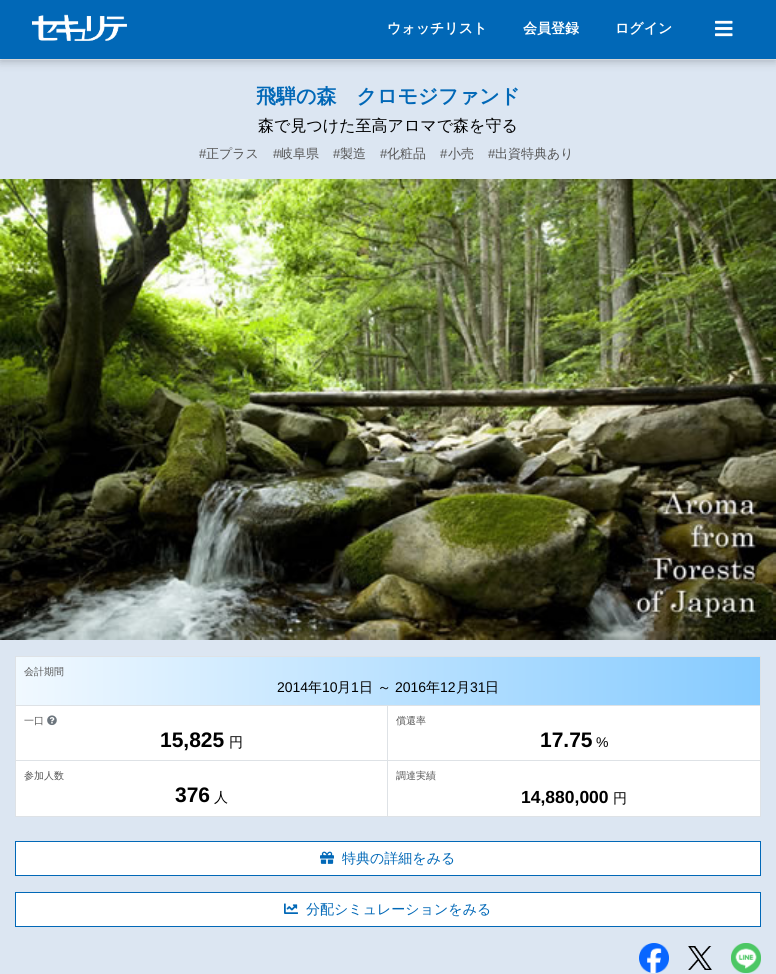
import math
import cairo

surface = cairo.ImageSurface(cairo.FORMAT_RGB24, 776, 974)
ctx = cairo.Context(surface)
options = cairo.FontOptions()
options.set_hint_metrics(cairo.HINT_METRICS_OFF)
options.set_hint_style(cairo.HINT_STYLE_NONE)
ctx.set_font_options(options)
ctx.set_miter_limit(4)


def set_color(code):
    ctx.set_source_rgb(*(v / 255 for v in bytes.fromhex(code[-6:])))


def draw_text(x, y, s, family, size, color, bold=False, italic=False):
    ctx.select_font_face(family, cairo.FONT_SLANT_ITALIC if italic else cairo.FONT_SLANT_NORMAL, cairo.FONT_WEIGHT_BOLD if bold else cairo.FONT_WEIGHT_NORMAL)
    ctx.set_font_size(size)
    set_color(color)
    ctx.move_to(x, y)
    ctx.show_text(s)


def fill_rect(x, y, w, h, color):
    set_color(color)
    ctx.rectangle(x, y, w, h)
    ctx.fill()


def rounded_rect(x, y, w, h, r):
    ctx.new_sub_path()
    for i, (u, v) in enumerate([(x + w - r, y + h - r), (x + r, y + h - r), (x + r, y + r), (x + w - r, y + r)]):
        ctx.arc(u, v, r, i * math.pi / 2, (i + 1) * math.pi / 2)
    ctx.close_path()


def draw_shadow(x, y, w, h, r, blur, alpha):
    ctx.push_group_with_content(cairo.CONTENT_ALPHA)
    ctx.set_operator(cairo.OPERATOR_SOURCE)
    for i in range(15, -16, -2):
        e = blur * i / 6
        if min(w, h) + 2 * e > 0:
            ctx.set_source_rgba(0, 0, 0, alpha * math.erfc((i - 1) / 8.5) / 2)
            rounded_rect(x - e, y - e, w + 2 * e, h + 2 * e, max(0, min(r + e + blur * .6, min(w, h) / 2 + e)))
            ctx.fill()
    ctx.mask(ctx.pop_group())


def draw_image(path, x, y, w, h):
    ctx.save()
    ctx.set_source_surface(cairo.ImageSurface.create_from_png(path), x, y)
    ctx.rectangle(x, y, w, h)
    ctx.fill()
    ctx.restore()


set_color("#ffffff")
ctx.paint()
fill_rect(0, 60, 776, 914, "#dce6f2")
set_color("#000000")
draw_shadow(0, 2, 776, 59, 0, 5, 0.25)
fill_rect(0, 0, 776, 59, "#0168b7")
draw_image("assets/img1.png", 32, 14, 95, 27)
draw_text(387, 33, "ウォッチリスト", "WenQuanYi Zen Hei", 14, "#ffffff", bold=True)
draw_text(523, 33, "会員登録", "WenQuanYi Zen Hei", 14, "#ffffff", bold=True)
draw_text(615, 33, "ログイン", "WenQuanYi Zen Hei", 14, "#ffffff", bold=True)
draw_image("assets/img2.png", 715, 20, 18, 17)
draw_text(256, 103, "飛騨の森　クロモジファンド", "WenQuanYi Zen Hei", 20, "#0168b7", bold=True)
draw_text(258, 131, "森で見つけた至高アロマで森を守る", "WenQuanYi Zen Hei Medium", 16, "#000000")
draw_text(199, 158, "#", "Liberation Sans", 13, "#555555")
draw_text(206, 158, "正プラス", "WenQuanYi Zen Hei Medium", 13, "#555555")
draw_text(273, 158, "#", "Liberation Sans", 13, "#555555")
draw_text(280, 158, "岐阜県", "WenQuanYi Zen Hei Medium", 13, "#555555")
draw_text(333, 158, "#", "Liberation Sans", 13, "#555555")
draw_text(340, 158, "製造", "WenQuanYi Zen Hei Medium", 13, "#555555")
draw_text(380, 158, "#", "Liberation Sans", 13, "#555555")
draw_text(387, 158, "化粧品", "WenQuanYi Zen Hei Medium", 13, "#555555")
draw_text(440, 158, "#", "Liberation Sans", 13, "#555555")
draw_text(448, 158, "小売", "WenQuanYi Zen Hei Medium", 13, "#555555")
draw_text(488, 158, "#", "Liberation Sans", 13, "#555555")
draw_text(495, 158, "出資特典あり", "WenQuanYi Zen Hei Medium", 13, "#555555")
draw_image("assets/img3.png", 0, 179, 776, 461)
fill_rect(16, 706, 744, 110, "#ffffff")
ctx.rectangle(15.5, 656.5, 745, 160)
set_color("#dee2e6")
ctx.set_line_width(1)
ctx.stroke()
fill_rect(16, 705, 744, 1, "#dee2e6")
gradient = cairo.LinearGradient(16, 681, 760, 681)
gradient.add_color_stop_rgba(0, 0.945, 0.976, 1, 1)
gradient.add_color_stop_rgba(1, 0.525, 0.796, 1, 1)
ctx.set_source(gradient)
ctx.rectangle(16, 657, 744, 48)
ctx.fill()
draw_text(24, 675, "会計期間", "WenQuanYi Zen Hei Medium", 10, "#555555")
draw_text(277, 692, "2014", "Liberation Sans", 14, "#000000")
draw_text(308, 692, "年", "WenQuanYi Zen Hei Medium", 14, "#000000")
draw_text(322, 692, "10", "Liberation Sans", 14, "#000000")
draw_text(337, 692, "月", "WenQuanYi Zen Hei Medium", 14, "#000000")
draw_text(351, 692, "1", "Liberation Sans", 14, "#000000")
draw_text(359, 692, "日 ～", "WenQuanYi Zen Hei Medium", 14, "#000000")
draw_text(395, 692, "2016", "Liberation Sans", 14, "#000000")
draw_text(426, 692, "年", "WenQuanYi Zen Hei Medium", 14, "#000000")
draw_text(440, 692, "12", "Liberation Sans", 14, "#000000")
draw_text(456, 692, "月", "WenQuanYi Zen Hei Medium", 14, "#000000")
draw_text(470, 692, "31", "Liberation Sans", 14, "#000000")
draw_text(485, 692, "日", "WenQuanYi Zen Hei Medium", 14, "#000000")
fill_rect(387, 706, 1, 110, "#dee2e6")
fill_rect(16, 760, 744, 1, "#dee2e6")
draw_text(24, 724, "一口", "WenQuanYi Zen Hei Medium", 10, "#555555")
draw_image("assets/img4.png", 47, 715, 10, 11)
draw_text(160, 747, "15,825", "Liberation Sans", 21, "#000000", bold=True)
draw_text(229, 747, "円", "WenQuanYi Zen Hei Medium", 14, "#000000")
draw_text(396, 724, "償還率", "WenQuanYi Zen Hei Medium", 10, "#555555")
draw_text(540, 747, "17.75", "Liberation Sans", 21, "#000000", bold=True)
draw_text(596, 747, "%", "Liberation Sans", 14, "#000000")
draw_text(24, 779, "参加人数", "WenQuanYi Zen Hei Medium", 10, "#555555")
draw_text(175, 802, "376", "Liberation Sans", 21, "#000000", bold=True)
draw_text(214, 802, "人", "WenQuanYi Zen Hei Medium", 14, "#000000")
draw_text(396, 779, "調達実績", "WenQuanYi Zen Hei Medium", 10, "#555555")
draw_text(521, 803, "14,880,000", "Liberation Sans", 17.5, "#000000", bold=True)
draw_text(613, 803, "円", "WenQuanYi Zen Hei Medium", 14, "#000000")
set_color("#ffffff")
ctx.rectangle(15.5, 841.5, 745, 34)
ctx.fill_preserve()
set_color("#0168b7")
ctx.stroke()
draw_image("assets/img5.png", 320, 851, 14, 13)
draw_text(342, 863, "特典の詳細をみる", "WenQuanYi Zen Hei Medium", 14, "#0168b7")
set_color("#ffffff")
ctx.rectangle(15.5, 892.5, 745, 34)
ctx.fill_preserve()
set_color("#0168b7")
ctx.stroke()
draw_image("assets/img6.png", 284, 903, 14, 11)
draw_text(306, 914, "分配シミュレーションをみる", "WenQuanYi Zen Hei Medium", 14, "#0168b7")
draw_image("assets/img7.png", 639, 943, 30, 30)
draw_image("assets/img8.png", 688, 946, 24, 24)
draw_image("assets/img9.png", 731, 943, 30, 30)
surface.write_to_png("output.png")
